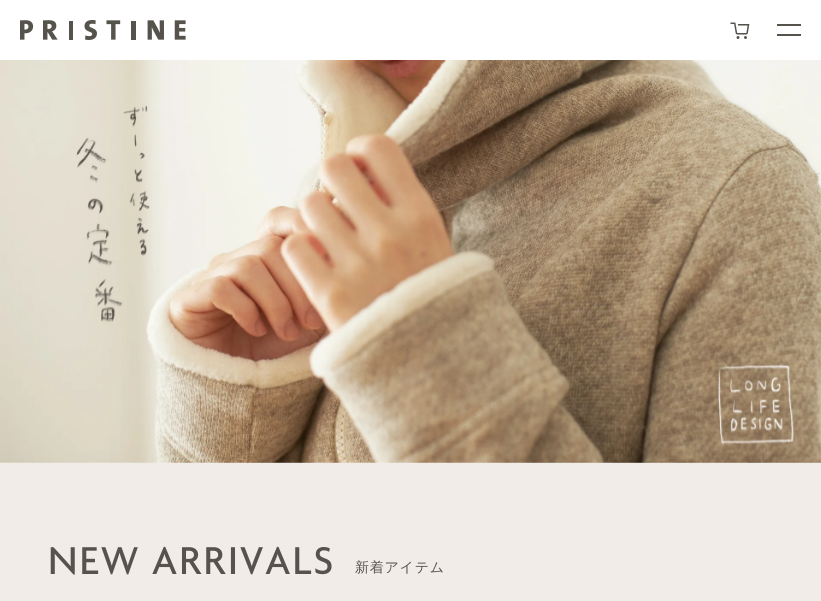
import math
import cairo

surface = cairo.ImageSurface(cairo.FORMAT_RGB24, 821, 601)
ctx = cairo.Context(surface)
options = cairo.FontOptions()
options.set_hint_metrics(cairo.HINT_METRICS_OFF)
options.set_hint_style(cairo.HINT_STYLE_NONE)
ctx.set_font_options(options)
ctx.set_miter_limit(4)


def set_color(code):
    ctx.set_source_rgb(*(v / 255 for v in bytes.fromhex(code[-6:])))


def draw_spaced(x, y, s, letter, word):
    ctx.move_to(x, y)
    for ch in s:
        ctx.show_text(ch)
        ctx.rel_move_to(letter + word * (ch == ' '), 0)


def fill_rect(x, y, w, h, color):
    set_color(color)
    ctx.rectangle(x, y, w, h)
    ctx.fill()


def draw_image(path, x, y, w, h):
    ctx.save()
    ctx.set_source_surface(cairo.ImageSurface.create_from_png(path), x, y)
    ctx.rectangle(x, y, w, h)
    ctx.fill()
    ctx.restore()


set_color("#ffffff")
ctx.paint()
draw_image("assets/img1.png", 20, 20, 166, 20)
draw_image("assets/img2.png", 730, 22, 20, 17)
fill_rect(777, 24, 24, 2, "#56534d")
fill_rect(777, 34, 24, 2, "#56534d")
draw_image("assets/img3.png", 0, 60, 821, 403)
fill_rect(0, 463, 821, 138, "#f1ece7")
ctx.select_font_face("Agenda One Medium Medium")
ctx.set_font_size(42)
set_color("#56534d")
draw_spaced(48, 574, "NEW ARRIVALS", 2.1, 0)
ctx.select_font_face("WenQuanYi Zen Hei Medium")
ctx.set_font_size(14)
draw_spaced(355, 572, "新着アイテム", 0.75, 0)
surface.write_to_png("output.png")
